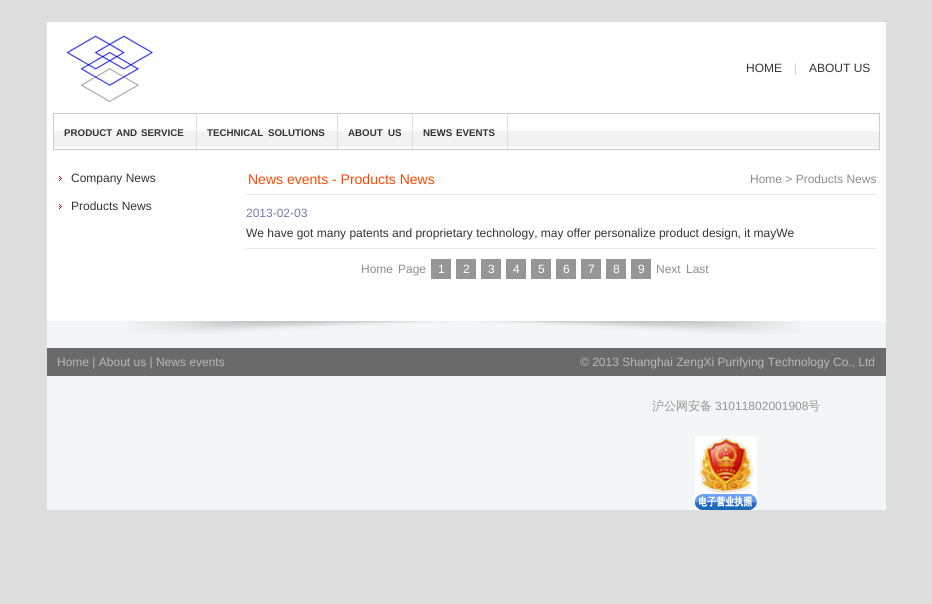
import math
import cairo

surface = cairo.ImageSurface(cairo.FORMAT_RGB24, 932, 604)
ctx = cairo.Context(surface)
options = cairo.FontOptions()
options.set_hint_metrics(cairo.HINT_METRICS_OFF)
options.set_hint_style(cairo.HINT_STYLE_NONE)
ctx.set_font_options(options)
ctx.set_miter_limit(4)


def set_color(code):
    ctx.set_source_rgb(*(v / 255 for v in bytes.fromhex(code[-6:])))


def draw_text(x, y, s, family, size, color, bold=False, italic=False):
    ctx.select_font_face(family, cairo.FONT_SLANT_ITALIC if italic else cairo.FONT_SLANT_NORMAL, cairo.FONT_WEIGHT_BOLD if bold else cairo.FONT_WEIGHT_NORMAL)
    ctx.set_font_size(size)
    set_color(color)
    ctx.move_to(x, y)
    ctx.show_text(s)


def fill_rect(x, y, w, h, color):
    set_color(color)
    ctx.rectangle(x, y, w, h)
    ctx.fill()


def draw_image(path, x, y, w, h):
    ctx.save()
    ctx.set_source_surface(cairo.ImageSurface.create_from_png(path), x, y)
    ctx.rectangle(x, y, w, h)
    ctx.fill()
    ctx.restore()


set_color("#dddddd")
ctx.paint()
fill_rect(47, 22, 839, 299, "#ffffff")
draw_image("assets/img1.png", 66, 33, 88, 69)
draw_text(746, 72, "HOME", "Liberation Sans", 12, "#333333")
draw_text(794, 72, "|", "Liberation Sans", 12, "#cccccc")
draw_text(809, 72, "ABOUT US", "Liberation Sans", 12, "#333333")
fill_rect(54, 131, 825, 16, "#f2f2f2")
ctx.rectangle(53.5, 113.5, 826, 36)
set_color("#cccccc")
ctx.set_line_width(1)
ctx.stroke()
fill_rect(196, 114, 1, 35, "#dddddd")
draw_text(64, 136, "PRODUCT", "Liberation Sans", 9.75, "#333333", bold=True)
draw_text(116, 136, "AND", "Liberation Sans", 9.75, "#333333", bold=True)
draw_text(141, 136, "SERVICE", "Liberation Sans", 9.75, "#333333", bold=True)
fill_rect(337, 114, 1, 35, "#dddddd")
draw_text(207, 136, "TECHNICAL", "Liberation Sans", 9.75, "#333333", bold=True)
draw_text(268, 136, "SOLUTIONS", "Liberation Sans", 9.75, "#333333", bold=True)
fill_rect(412, 114, 1, 35, "#dddddd")
draw_text(348, 136, "ABOUT", "Liberation Sans", 9.75, "#333333", bold=True)
draw_text(388, 136, "US", "Liberation Sans", 9.75, "#333333", bold=True)
fill_rect(507, 114, 1, 35, "#dddddd")
draw_text(423, 136, "NEWS", "Liberation Sans", 9.75, "#333333", bold=True)
draw_text(456, 136, "EVENTS", "Liberation Sans", 9.75, "#333333", bold=True)
draw_image("assets/img2.png", 59, 176, 3, 5)
draw_text(71, 182, "Company News", "Liberation Sans", 12, "#333333")
draw_image("assets/img2.png", 59, 204, 3, 5)
draw_text(71, 210, "Products News", "Liberation Sans", 12, "#333333")
draw_text(248, 184, "News events - Products News", "Liberation Sans", 14, "#ff4800")
draw_text(750, 183, "Home > Products News", "Liberation Sans", 12, "#8d8d8d")
fill_rect(246, 194, 630, 1, "#e7e7e7")
fill_rect(246, 248, 630, 1, "#e7e7e7")
draw_text(246, 217, "2013-02-03", "Liberation Sans", 12, "#747bab")
draw_text(246, 237, "We have got many patents and proprietary technology, may offer personalize product design, it mayWe", "Liberation Sans", 12, "#333333")
draw_text(361, 273, "Home", "Liberation Sans", 12, "#8d8d8d")
draw_text(398, 273, "Page", "Liberation Sans", 12, "#8d8d8d")
fill_rect(431, 259, 20, 20, "#969696")
draw_text(438, 273, "1", "Liberation Sans", 12, "#ffffff")
fill_rect(456, 259, 20, 20, "#969696")
draw_text(463, 273, "2", "Liberation Sans", 12, "#ffffff")
fill_rect(481, 259, 20, 20, "#969696")
draw_text(488, 273, "3", "Liberation Sans", 12, "#ffffff")
fill_rect(506, 259, 20, 20, "#969696")
draw_text(513, 273, "4", "Liberation Sans", 12, "#ffffff")
fill_rect(531, 259, 20, 20, "#969696")
draw_text(538, 273, "5", "Liberation Sans", 12, "#ffffff")
fill_rect(556, 259, 20, 20, "#969696")
draw_text(563, 273, "6", "Liberation Sans", 12, "#ffffff")
fill_rect(581, 259, 20, 20, "#969696")
draw_text(588, 273, "7", "Liberation Sans", 12, "#ffffff")
fill_rect(606, 259, 20, 20, "#969696")
draw_text(613, 273, "8", "Liberation Sans", 12, "#ffffff")
fill_rect(631, 259, 20, 20, "#969696")
draw_text(638, 273, "9", "Liberation Sans", 12, "#ffffff")
draw_text(656, 273, "Next", "Liberation Sans", 12, "#8d8d8d")
draw_text(686, 273, "Last", "Liberation Sans", 12, "#8d8d8d")
fill_rect(47, 321, 839, 189, "#f3f6f7")
draw_image("assets/img3.png", 127, 321, 674, 14)
fill_rect(47, 348, 839, 28, "#6a6a6a")
draw_text(57, 366, "Home | About us | News events", "Liberation Sans", 12, "#b8b8b8")
draw_text(580, 366, "© 2013 Shanghai ZengXi Purifying Technology Co., Ltd", "Liberation Sans", 12, "#b8b8b8")
draw_text(652, 410, "沪公网安备", "WenQuanYi Zen Hei Medium", 12, "#939393")
draw_text(715, 410, "31011802001908", "Liberation Sans", 12, "#939393")
draw_text(808, 410, "号", "WenQuanYi Zen Hei Medium", 12, "#939393")
draw_image("assets/img4.png", 695, 436, 62, 74)
surface.write_to_png("output.png")
